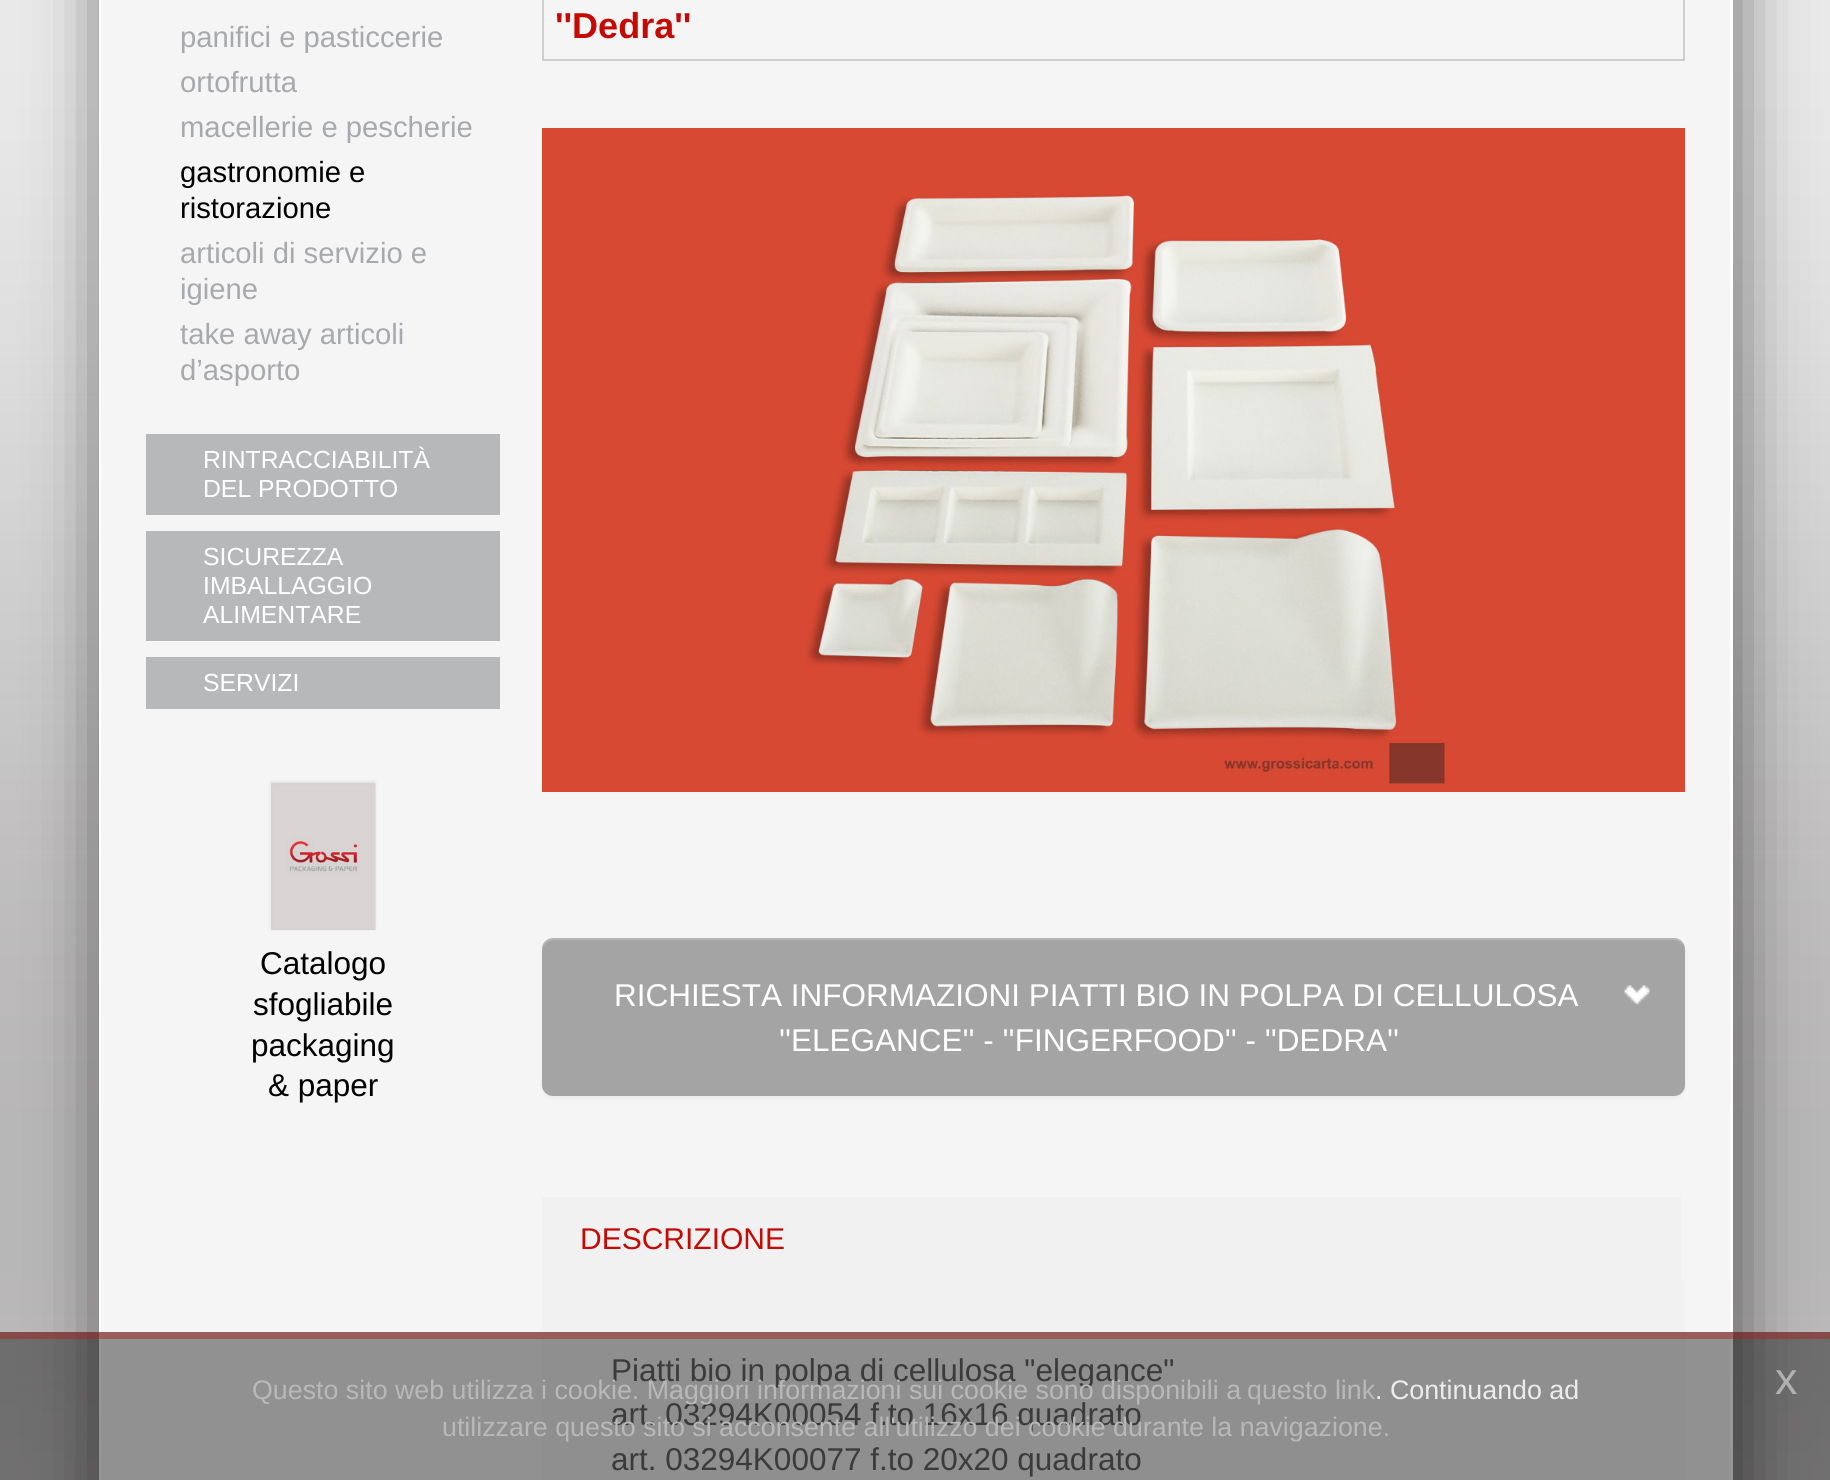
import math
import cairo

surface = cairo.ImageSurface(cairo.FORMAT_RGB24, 1830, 1480)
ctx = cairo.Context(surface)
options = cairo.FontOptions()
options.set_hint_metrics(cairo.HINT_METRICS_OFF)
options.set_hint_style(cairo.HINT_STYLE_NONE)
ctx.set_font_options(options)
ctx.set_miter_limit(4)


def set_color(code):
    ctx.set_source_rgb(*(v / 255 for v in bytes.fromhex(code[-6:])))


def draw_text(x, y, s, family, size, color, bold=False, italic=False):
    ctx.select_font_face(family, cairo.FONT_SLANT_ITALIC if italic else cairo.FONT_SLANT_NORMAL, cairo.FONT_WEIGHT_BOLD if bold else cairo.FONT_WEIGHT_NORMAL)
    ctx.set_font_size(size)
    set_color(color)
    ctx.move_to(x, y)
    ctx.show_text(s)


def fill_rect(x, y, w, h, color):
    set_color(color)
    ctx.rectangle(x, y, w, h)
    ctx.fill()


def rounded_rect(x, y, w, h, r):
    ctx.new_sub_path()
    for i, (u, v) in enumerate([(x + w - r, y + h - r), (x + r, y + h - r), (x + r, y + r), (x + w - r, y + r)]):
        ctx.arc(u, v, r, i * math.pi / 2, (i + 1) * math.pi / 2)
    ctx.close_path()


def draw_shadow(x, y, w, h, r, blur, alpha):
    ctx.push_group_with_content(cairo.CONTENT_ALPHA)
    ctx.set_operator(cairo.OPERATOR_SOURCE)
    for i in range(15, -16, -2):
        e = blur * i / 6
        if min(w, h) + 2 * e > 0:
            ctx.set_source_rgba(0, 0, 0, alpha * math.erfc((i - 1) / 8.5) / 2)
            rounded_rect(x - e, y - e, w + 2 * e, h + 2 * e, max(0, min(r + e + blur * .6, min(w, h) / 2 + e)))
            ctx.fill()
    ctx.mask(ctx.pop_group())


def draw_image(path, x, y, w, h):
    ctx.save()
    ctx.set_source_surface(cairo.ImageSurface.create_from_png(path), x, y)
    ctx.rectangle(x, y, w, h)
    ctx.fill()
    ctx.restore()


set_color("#ffffff")
ctx.paint()
draw_image("assets/img1.png", 0, 0, 1830, 1480)
set_color("#000000")
draw_shadow(104, -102, 1633, 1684, 0, 34, 0.54)
fill_rect(99, 0, 1634, 1480, "#ffffff")
fill_rect(101, 0, 1629, 1480, "#f5f5f5")
draw_text(180, 47, "panifici e pasticcerie", "Liberation Sans", 29.25, "#a7a9ac")
draw_text(180, 92, "ortofrutta", "Liberation Sans", 29.25, "#a7a9ac")
draw_text(180, 137, "macellerie e pescherie", "Liberation Sans", 29.25, "#a7a9ac")
draw_text(180, 182, "gastronomie e", "Liberation Sans", 29.25, "#000000")
draw_text(180, 218, "ristorazione", "Liberation Sans", 29.25, "#000000")
draw_text(180, 263, "articoli di servizio e", "Liberation Sans", 29.25, "#a7a9ac")
draw_text(180, 299, "igiene", "Liberation Sans", 29.25, "#a7a9ac")
draw_text(180, 344, "take away articoli", "Liberation Sans", 29.25, "#a7a9ac")
draw_text(180, 380, "d’asporto", "Liberation Sans", 29.25, "#a7a9ac")
fill_rect(146, 434, 354, 81, "#b6b8ba")
draw_text(203, 468, "RINTRACCIABILITÀ", "Liberation Sans", 24.75, "#ffffff")
draw_text(203, 497, "DEL PRODOTTO", "Liberation Sans", 24.75, "#ffffff")
fill_rect(146, 531, 354, 110, "#b6b8ba")
draw_text(203, 565, "SICUREZZA", "Liberation Sans", 24.75, "#ffffff")
draw_text(203, 594, "IMBALLAGGIO", "Liberation Sans", 24.75, "#ffffff")
draw_text(203, 623, "ALIMENTARE", "Liberation Sans", 24.75, "#ffffff")
fill_rect(146, 657, 354, 52, "#b6b8ba")
draw_text(203, 691, "SERVIZI", "Liberation Sans", 24.75, "#ffffff")
draw_image("assets/img2.png", 269, 780, 108, 151)
draw_text(260, 974, "Catalogo", "Liberation Sans", 31.5, "#000000")
draw_text(253, 1015, "sfogliabile", "Liberation Sans", 31.5, "#000000")
draw_text(251, 1056, "packaging", "Liberation Sans", 31.5, "#000000")
draw_text(268, 1096, "& paper", "Liberation Sans", 31.5, "#000000")
ctx.rectangle(543, -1, 1141, 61)
set_color("#cecece")
ctx.stroke()
draw_text(555, 38, "''Dedra''", "Liberation Sans", 36, "#c50903", bold=True)
fill_rect(542, 128, 1143, 664, "#d74933")
draw_image("assets/img3.png", 806, 192, 639, 592)
set_color("#000000")
draw_shadow(542, 941, 1143, 157, 11, 2, 0.05)
set_color("#a4a4a5")
rounded_rect(542, 938, 1143, 158, 11)
ctx.fill()
ctx.set_source_rgba(1, 1, 1, 0.2)
ctx.new_path()
ctx.move_to(554, 940)
ctx.line_to(1674, 940)
ctx.curve_to(1680, 940, 1685, 946, 1685, 952)
ctx.curve_to(1685, 945, 1682, 938, 1674, 938)
ctx.line_to(553, 938)
ctx.curve_to(545, 938, 542, 945, 542, 952)
ctx.curve_to(542, 946, 547, 940, 554, 940)
ctx.close_path()
ctx.fill()
draw_text(614, 1006, "RICHIESTA INFORMAZIONI PIATTI BIO IN POLPA DI CELLULOSA", "Liberation Sans", 31.5, "#ffffff")
draw_image("assets/img4.png", 1624, 985, 26, 21)
draw_text(779, 1051, "''ELEGANCE'' - ''FINGERFOOD'' - ''DEDRA''", "Liberation Sans", 31.5, "#ffffff")
fill_rect(542, 1197, 1139, 83, "#f1f1f1")
draw_text(580, 1249, "DESCRIZIONE", "Liberation Sans", 30, "#c50903")
fill_rect(542, 1280, 1143, 200, "#f1f1f1")
draw_text(611, 1381, "Piatti bio in polpa di cellulosa \"elegance\"", "Liberation Sans", 31.5, "#636466")
draw_text(611, 1425, "art. 03294K00054 f.to 16x16 quadrato", "Liberation Sans", 31.5, "#636466")
draw_text(611, 1470, "art. 03294K00077 f.to 20x20 quadrato", "Liberation Sans", 31.5, "#636466")
ctx.set_source_rgba(0, 0, 0, 0.41)
ctx.rectangle(0, 1332, 1830, 148)
ctx.fill()
ctx.set_source_rgba(0.62, 0.153, 0.137, 0.48)
ctx.rectangle(0, 1332, 1830, 7)
ctx.fill()
draw_text(252, 1399, "Questo sito web utilizza i cookie. Maggiori informazioni sui cookie sono disponibili a", "Liberation Sans", 26.8, "#b8b8b8")
draw_text(1247, 1399, "questo link", "Liberation Sans", 26.8, "#b8b8b8")
draw_text(1375, 1399, ". Continuando ad", "Liberation Sans", 26.8, "#ececec")
draw_text(1775, 1394, "x", "Liberation Sans", 45, "#b1b1b1")
draw_text(442, 1436, "utilizzare questo sito si acconsente all'utilizzo dei cookie durante la navigazione.", "Liberation Sans", 26.8, "#b8b8b8")
surface.write_to_png("output.png")
